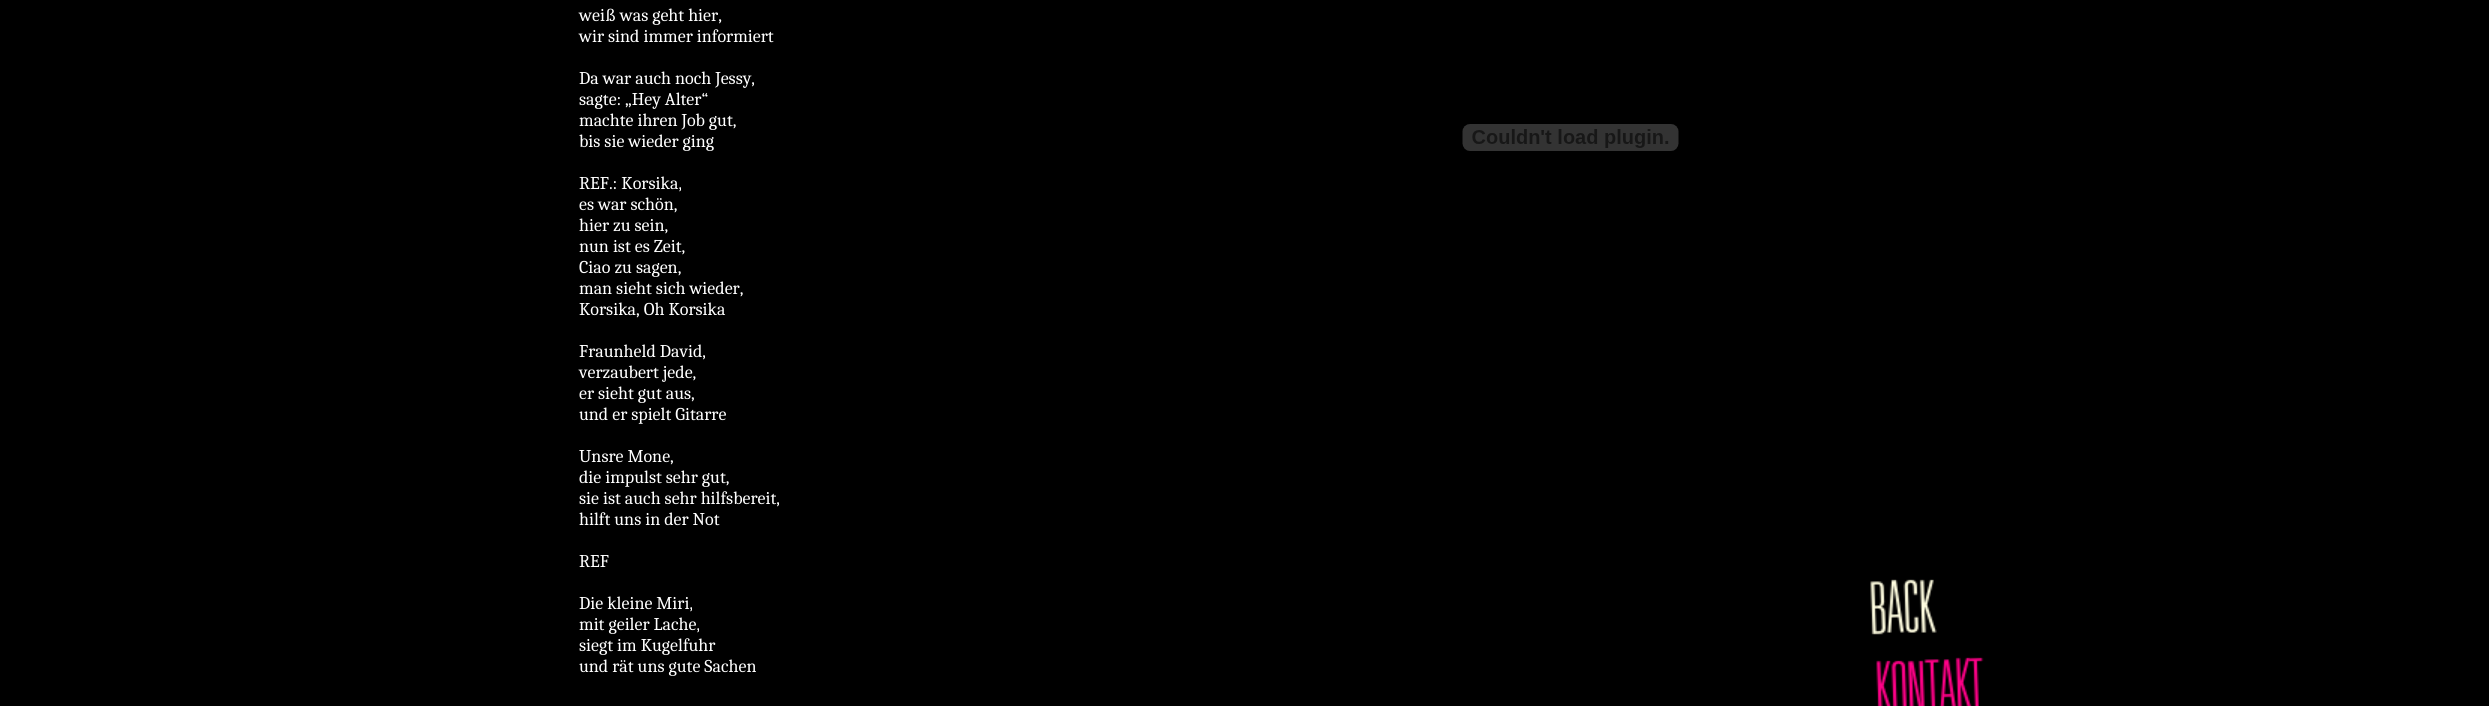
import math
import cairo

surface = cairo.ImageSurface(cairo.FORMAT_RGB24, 2489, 706)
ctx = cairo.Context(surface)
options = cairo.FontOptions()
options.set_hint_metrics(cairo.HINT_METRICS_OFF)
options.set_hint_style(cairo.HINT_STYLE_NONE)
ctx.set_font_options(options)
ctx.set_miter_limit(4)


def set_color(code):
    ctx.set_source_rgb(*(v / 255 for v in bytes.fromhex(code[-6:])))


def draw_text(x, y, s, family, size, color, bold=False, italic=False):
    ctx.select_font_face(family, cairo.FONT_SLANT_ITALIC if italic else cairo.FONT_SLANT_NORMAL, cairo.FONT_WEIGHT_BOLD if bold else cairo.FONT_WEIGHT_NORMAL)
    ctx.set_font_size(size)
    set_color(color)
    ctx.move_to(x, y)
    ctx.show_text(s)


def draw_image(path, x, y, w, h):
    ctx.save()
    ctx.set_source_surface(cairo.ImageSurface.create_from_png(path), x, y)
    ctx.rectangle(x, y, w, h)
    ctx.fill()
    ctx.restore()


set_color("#000000")
ctx.paint()
draw_text(579, 21, "weiß was geht hier,", "Caladea", 18, "#ffffff")
draw_text(579, 42, "wir sind immer informiert", "Caladea", 18, "#ffffff")
draw_text(579, 84, "Da war auch noch Jessy,", "Caladea", 18, "#ffffff")
draw_text(579, 105, "sagte: „Hey Alter“", "Caladea", 18, "#ffffff")
draw_text(579, 126, "machte ihren Job gut,", "Caladea", 18, "#ffffff")
draw_text(579, 147, "bis sie wieder ging", "Caladea", 18, "#ffffff")
draw_text(579, 189, "REF.: Korsika,", "Caladea", 18, "#ffffff")
draw_text(579, 210, "es war schön,", "Caladea", 18, "#ffffff")
draw_text(579, 231, "hier zu sein,", "Caladea", 18, "#ffffff")
draw_text(579, 252, "nun ist es Zeit,", "Caladea", 18, "#ffffff")
draw_text(579, 273, "Ciao zu sagen,", "Caladea", 18, "#ffffff")
draw_text(579, 294, "man sieht sich wieder,", "Caladea", 18, "#ffffff")
draw_text(579, 315, "Korsika, Oh Korsika", "Caladea", 18, "#ffffff")
draw_text(579, 357, "Fraunheld David,", "Caladea", 18, "#ffffff")
draw_text(579, 378, "verzaubert jede,", "Caladea", 18, "#ffffff")
draw_text(579, 399, "er sieht gut aus,", "Caladea", 18, "#ffffff")
draw_text(579, 420, "und er spielt Gitarre", "Caladea", 18, "#ffffff")
draw_text(579, 462, "Unsre Mone,", "Caladea", 18, "#ffffff")
draw_text(579, 483, "die impulst sehr gut,", "Caladea", 18, "#ffffff")
draw_text(579, 504, "sie ist auch sehr hilfsbereit,", "Caladea", 18, "#ffffff")
draw_text(579, 525, "hilft uns in der Not", "Caladea", 18, "#ffffff")
draw_text(579, 567, "REF", "Caladea", 18, "#ffffff")
draw_text(579, 609, "Die kleine Miri,", "Caladea", 18, "#ffffff")
draw_text(579, 630, "mit geiler Lache,", "Caladea", 18, "#ffffff")
draw_text(579, 651, "siegt im Kugelfuhr", "Caladea", 18, "#ffffff")
draw_text(579, 672, "und rät uns gute Sachen", "Caladea", 18, "#ffffff")
draw_image("assets/img1.png", 1462, 124, 217, 27)
draw_image("assets/img2.png", 1870, 579, 67, 56)
draw_image("assets/img3.png", 1876, 657, 108, 49)
surface.write_to_png("output.png")
